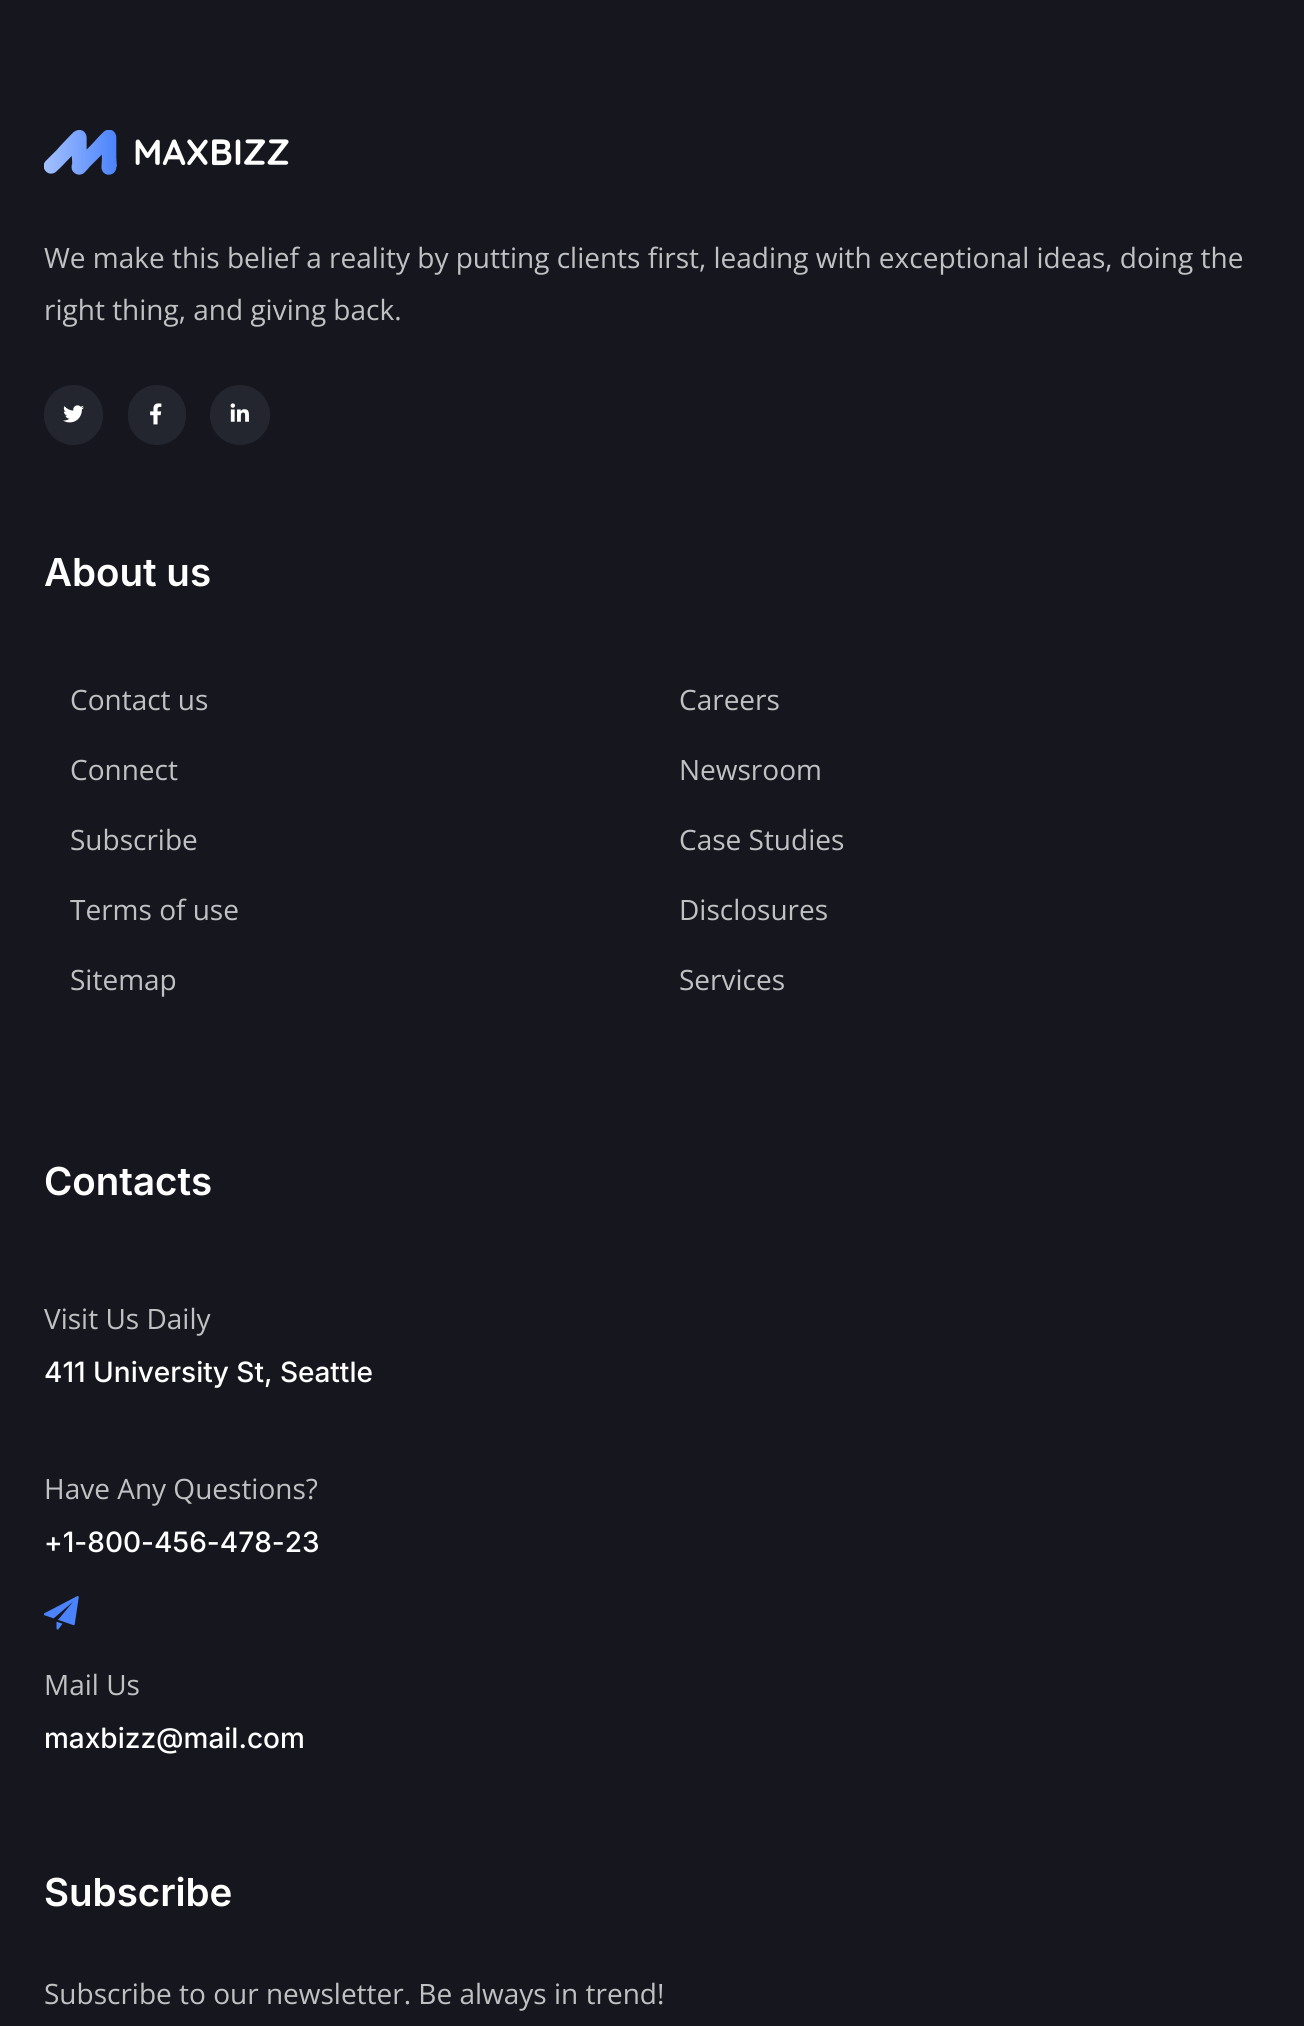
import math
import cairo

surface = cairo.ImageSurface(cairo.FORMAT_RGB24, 1304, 2026)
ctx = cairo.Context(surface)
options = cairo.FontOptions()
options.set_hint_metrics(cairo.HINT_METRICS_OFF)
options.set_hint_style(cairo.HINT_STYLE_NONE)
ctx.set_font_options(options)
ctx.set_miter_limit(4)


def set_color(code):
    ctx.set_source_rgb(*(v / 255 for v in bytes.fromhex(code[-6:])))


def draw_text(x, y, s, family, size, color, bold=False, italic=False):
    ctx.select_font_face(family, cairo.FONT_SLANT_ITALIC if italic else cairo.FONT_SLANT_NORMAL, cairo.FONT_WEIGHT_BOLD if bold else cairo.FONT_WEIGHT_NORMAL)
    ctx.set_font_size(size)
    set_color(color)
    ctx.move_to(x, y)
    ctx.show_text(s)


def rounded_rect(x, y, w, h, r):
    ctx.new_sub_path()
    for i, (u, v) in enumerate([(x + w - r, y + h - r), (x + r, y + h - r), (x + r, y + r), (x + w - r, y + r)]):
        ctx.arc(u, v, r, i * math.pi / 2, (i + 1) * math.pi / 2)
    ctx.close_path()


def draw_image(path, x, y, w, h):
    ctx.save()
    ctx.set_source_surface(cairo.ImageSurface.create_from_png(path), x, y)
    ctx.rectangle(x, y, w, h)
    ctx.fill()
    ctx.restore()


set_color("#16171e")
ctx.paint()
draw_image("assets/img1.png", 44, 130, 245, 45)
draw_text(44, 268, "We make this belief a reality by putting clients first, leading with exceptional ideas, doing the", "Open Sans", 28, "#c0c1c2")
draw_text(44, 320, "right thing, and giving back.", "Open Sans", 28, "#c0c1c2")
set_color("#24262f")
rounded_rect(44, 385, 59, 60, 29.5)
ctx.fill()
draw_image("assets/img2.png", 63, 405, 21, 18)
rounded_rect(128, 385, 58, 60, 29)
ctx.fill()
draw_image("assets/img3.png", 150, 403, 12, 22)
ctx.arc(240, 415, 30, 0, 2 * math.pi)
ctx.fill()
draw_image("assets/img4.png", 230, 403, 19, 19)
draw_text(44, 586, "About us", "Inter SemiBold", 38.5, "#ffffff")
draw_text(70, 710, "Contact us", "Open Sans", 28, "#c0c1c2")
draw_text(70, 780, "Connect", "Open Sans", 28, "#c0c1c2")
draw_text(70, 850, "Subscribe", "Open Sans", 28, "#c0c1c2")
draw_text(70, 920, "Terms of use", "Open Sans", 28, "#c0c1c2")
draw_text(70, 990, "Sitemap", "Open Sans", 28, "#c0c1c2")
draw_text(679, 710, "Careers", "Open Sans", 28, "#c0c1c2")
draw_text(679, 780, "Newsroom", "Open Sans", 28, "#c0c1c2")
draw_text(679, 850, "Case Studies", "Open Sans", 28, "#c0c1c2")
draw_text(679, 920, "Disclosures", "Open Sans", 28, "#c0c1c2")
draw_text(679, 990, "Services", "Open Sans", 28, "#c0c1c2")
draw_text(44, 1195, "Contacts", "Inter SemiBold", 38.5, "#ffffff")
draw_text(44, 1329, "Visit Us Daily", "Open Sans", 28, "#c0c1c2")
draw_text(44, 1382, "411 University St, Seattle", "Inter Medium", 28, "#ffffff")
draw_text(44, 1499, "Have Any Questions?", "Open Sans", 28, "#c0c1c2")
draw_text(44, 1552, "+1-800-456-478-23", "Inter Medium", 28, "#ffffff")
draw_image("assets/img5.png", 44, 1596, 35, 34)
draw_text(44, 1695, "Mail Us", "Open Sans", 28, "#c0c1c2")
draw_text(44, 1748, "maxbizz@mail.com", "Inter Medium", 28, "#ffffff")
draw_text(44, 1906, "Subscribe", "Inter SemiBold", 38.5, "#ffffff")
draw_text(44, 2004, "Subscribe to our newsletter. Be always in trend!", "Open Sans", 28, "#c0c1c2")
surface.write_to_png("output.png")
